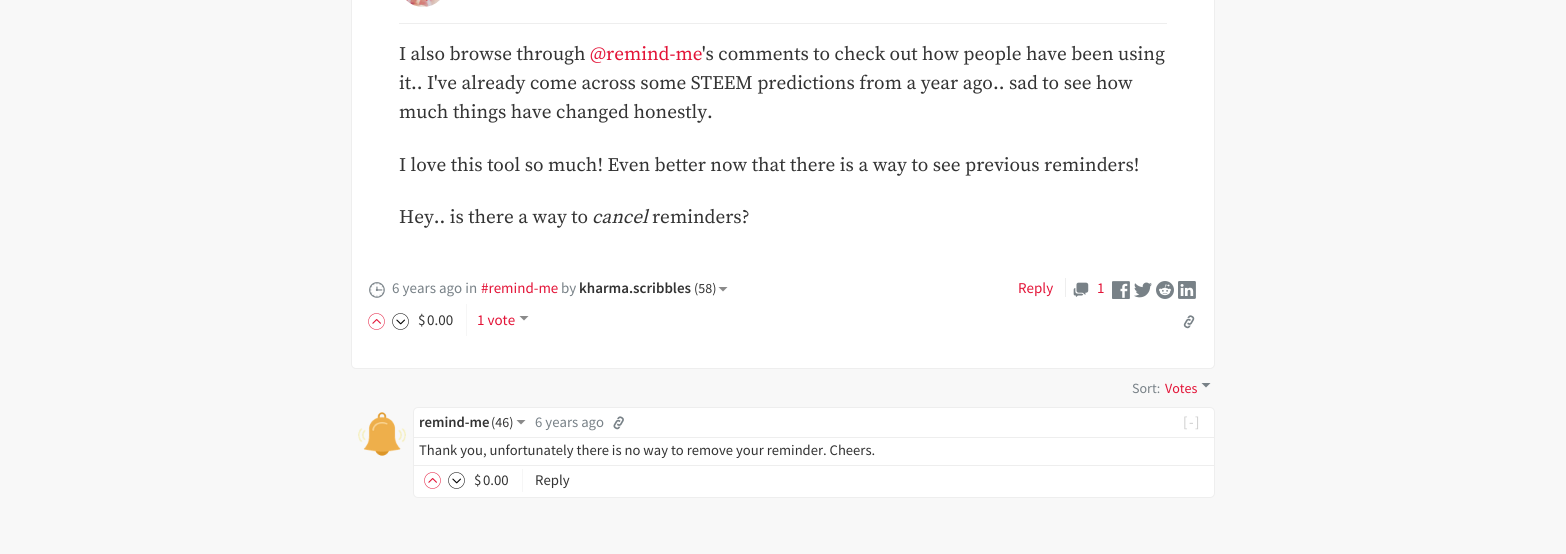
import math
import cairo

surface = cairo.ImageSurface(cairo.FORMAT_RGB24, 1566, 554)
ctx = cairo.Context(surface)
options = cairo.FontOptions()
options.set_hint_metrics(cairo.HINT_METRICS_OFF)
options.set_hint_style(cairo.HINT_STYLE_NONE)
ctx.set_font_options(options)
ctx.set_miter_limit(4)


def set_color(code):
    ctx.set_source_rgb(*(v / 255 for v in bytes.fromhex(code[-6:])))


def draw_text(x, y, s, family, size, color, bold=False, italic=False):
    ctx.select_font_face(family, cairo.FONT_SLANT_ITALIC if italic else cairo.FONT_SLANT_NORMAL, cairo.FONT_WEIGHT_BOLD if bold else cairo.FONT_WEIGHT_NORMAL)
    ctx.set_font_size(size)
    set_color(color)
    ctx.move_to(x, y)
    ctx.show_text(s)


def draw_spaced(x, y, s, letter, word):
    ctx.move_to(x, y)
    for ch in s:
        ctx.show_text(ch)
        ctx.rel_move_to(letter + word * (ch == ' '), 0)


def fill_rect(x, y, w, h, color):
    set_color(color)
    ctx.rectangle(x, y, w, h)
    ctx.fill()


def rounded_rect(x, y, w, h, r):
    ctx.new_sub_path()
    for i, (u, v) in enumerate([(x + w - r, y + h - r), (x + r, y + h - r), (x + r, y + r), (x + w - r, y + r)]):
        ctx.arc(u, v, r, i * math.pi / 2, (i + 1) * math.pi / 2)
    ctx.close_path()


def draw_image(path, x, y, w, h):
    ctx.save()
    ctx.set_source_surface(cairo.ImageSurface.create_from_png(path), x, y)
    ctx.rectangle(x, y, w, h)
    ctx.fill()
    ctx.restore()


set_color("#f8f8f8")
ctx.paint()
set_color("#ffffff")
rounded_rect(351.5, -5.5, 863, 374, 4.5)
ctx.fill_preserve()
set_color("#eeeeee")
ctx.set_line_width(1)
ctx.stroke()
fill_rect(399, 23, 768, 1, "#eeeeee")
draw_image("assets/img1.png", 406, 0, 34, 7)
draw_text(399, 60, "I also browse through", "Source Serif Pro", 19.2, "#333333")
draw_text(590, 60, "@remind-me", "Source Serif Pro", 19.2, "#e31337")
draw_text(702, 60, "'s comments to check out how people have been using", "Source Serif Pro", 19.2, "#333333")
draw_text(399, 89, "it.. I've already come across some STEEM predictions from a year ago.. sad to see how", "Source Serif Pro", 19.2, "#333333")
draw_text(399, 118, "much things have changed honestly.", "Source Serif Pro", 19.2, "#333333")
draw_text(399, 171, "I love this tool so much! Even better now that there is a way to see previous reminders!", "Source Serif Pro", 19.2, "#333333")
draw_text(399, 223, "Hey.. is there a way to", "Source Serif Pro", 19.2, "#333333")
draw_text(592, 223, "cancel", "Source Serif Pro", 19.2, "#333333", italic=True)
draw_text(652, 223, "reminders?", "Source Serif Pro", 19.2, "#333333")
draw_image("assets/img2.png", 369, 282, 16, 16)
draw_text(392, 293, "6 years ago in", "Source Sans Pro", 15, "#788187")
draw_text(481, 293, "#remind-me", "Source Sans Pro", 15, "#e31337")
draw_text(561, 293, "by", "Source Sans Pro", 15, "#788187")
draw_text(579, 293, "kharma.scribbles", "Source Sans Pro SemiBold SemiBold", 15, "#333333")
draw_text(694, 293, "(58)", "Source Sans Pro", 14, "#333333")
set_color("#8a8a8a")
ctx.new_path()
ctx.move_to(718.5, 287)
ctx.line_to(723, 291.5)
ctx.line_to(727.5, 287)
ctx.close_path()
ctx.fill()
fill_rect(466, 304, 1, 32, "#f6f6f6")
draw_image("assets/img3.png", 368, 313, 17, 17)
draw_image("assets/img4.png", 392, 313, 17, 17)
draw_text(418, 325, "$", "Source Sans Pro", 15, "#333333")
draw_text(427, 325, "0.00", "Source Sans Pro", 15, "#333333")
draw_text(477, 325, "1 vote", "Source Sans Pro", 15, "#e31337")
set_color("#8a8a8a")
ctx.new_path()
ctx.move_to(519.5, 316)
ctx.line_to(524, 320.5)
ctx.line_to(528.5, 316)
ctx.close_path()
ctx.fill()
draw_text(1018, 293, "Reply", "Source Sans Pro", 15, "#e31337")
fill_rect(1065, 278, 1, 19, "#eeeeee")
draw_image("assets/img5.png", 1073, 282, 16, 15)
draw_text(1097, 293, "1", "Source Sans Pro", 15, "#e31337")
draw_image("assets/img6.png", 1112, 281, 18, 18)
draw_image("assets/img7.png", 1134, 282, 18, 16)
draw_image("assets/img8.png", 1156, 281, 18, 18)
draw_image("assets/img9.png", 1178, 281, 18, 18)
draw_image("assets/img10.png", 1183, 315, 12, 14)
draw_text(1132, 393, "Sort:", "Source Sans Pro", 14, "#788187")
draw_text(1165, 393, "Votes", "Source Sans Pro", 14, "#e31337")
set_color("#788187")
ctx.new_path()
ctx.move_to(1201.5, 383)
ctx.line_to(1206, 387.5)
ctx.line_to(1210.5, 383)
ctx.close_path()
ctx.fill()
draw_image("assets/img11.png", 358, 412, 48, 44)
set_color("#ffffff")
ctx.new_path()
ctx.move_to(418, 407.5)
ctx.line_to(1210, 407.5)
ctx.curve_to(1212.5, 407.5, 1214.5, 409.5, 1214.5, 412)
ctx.line_to(1214.5, 437.5)
ctx.line_to(413.5, 437.5)
ctx.line_to(413.5, 412)
ctx.curve_to(413.5, 409.5, 415.5, 407.5, 418, 407.5)
ctx.close_path()
ctx.fill_preserve()
set_color("#eeeeee")
ctx.stroke()
draw_text(419, 427, "remind-me", "Source Sans Pro SemiBold SemiBold", 14.75, "#333333")
draw_text(491, 427, "(46)", "Source Sans Pro", 14, "#333333")
set_color("#8a8a8a")
ctx.new_path()
ctx.move_to(516.5, 420)
ctx.line_to(521, 424.5)
ctx.line_to(525.5, 420)
ctx.close_path()
ctx.fill()
draw_text(535, 427, "6 years ago", "Source Sans Pro", 14.75, "#788187")
draw_image("assets/img12.png", 613, 416, 11, 14)
set_color("#cacaca")
draw_spaced(1183, 427, "[-]", 1.5, 0)
fill_rect(414, 438, 800, 27, "#ffffff")
fill_rect(1214, 438, 1, 27, "#eeeeee")
fill_rect(413, 438, 1, 27, "#eeeeee")
draw_text(419, 455, "Thank you, unfortunately there is no way to remove your reminder. Cheers.", "Source Sans Pro", 14.6, "#333333")
set_color("#ffffff")
ctx.new_path()
ctx.move_to(413.5, 465.5)
ctx.line_to(1214.5, 465.5)
ctx.line_to(1214.5, 493)
ctx.curve_to(1214.5, 495.5, 1212.5, 497.5, 1210, 497.5)
ctx.line_to(418, 497.5)
ctx.curve_to(415.5, 497.5, 413.5, 495.5, 413.5, 493)
ctx.close_path()
ctx.fill_preserve()
set_color("#eeeeee")
ctx.stroke()
fill_rect(522, 469, 1, 23, "#f6f6f6")
draw_image("assets/img3.png", 424, 472, 17, 17)
draw_image("assets/img4.png", 448, 472, 17, 17)
draw_text(474, 485, "$", "Source Sans Pro", 14.75, "#333333")
draw_text(483, 485, "0.00", "Source Sans Pro", 14.75, "#333333")
draw_text(535, 485, "Reply", "Source Sans Pro", 14.75, "#333333")
surface.write_to_png("output.png")
